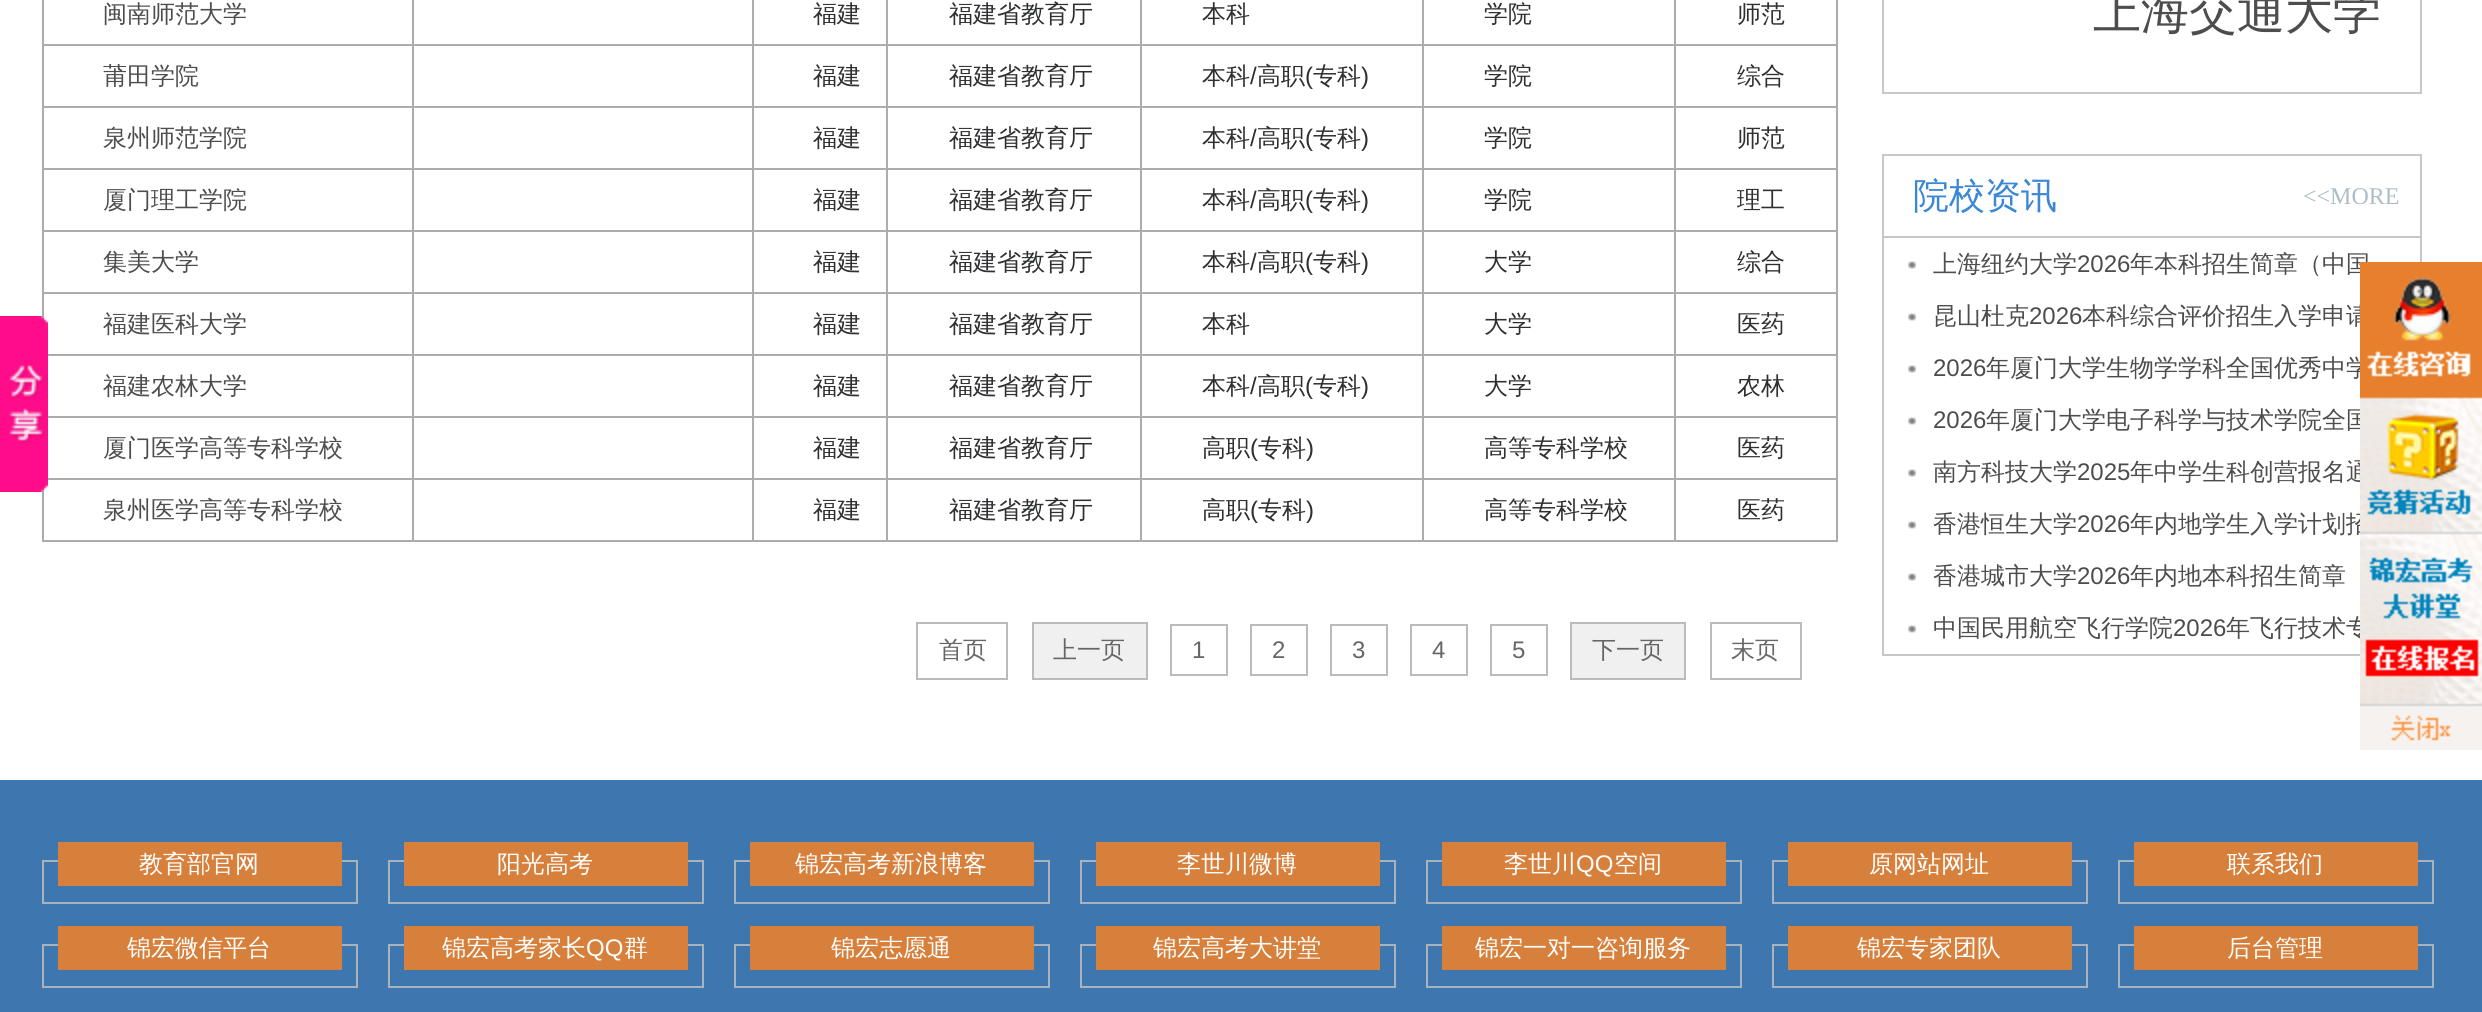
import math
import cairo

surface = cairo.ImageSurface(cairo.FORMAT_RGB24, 2482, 1012)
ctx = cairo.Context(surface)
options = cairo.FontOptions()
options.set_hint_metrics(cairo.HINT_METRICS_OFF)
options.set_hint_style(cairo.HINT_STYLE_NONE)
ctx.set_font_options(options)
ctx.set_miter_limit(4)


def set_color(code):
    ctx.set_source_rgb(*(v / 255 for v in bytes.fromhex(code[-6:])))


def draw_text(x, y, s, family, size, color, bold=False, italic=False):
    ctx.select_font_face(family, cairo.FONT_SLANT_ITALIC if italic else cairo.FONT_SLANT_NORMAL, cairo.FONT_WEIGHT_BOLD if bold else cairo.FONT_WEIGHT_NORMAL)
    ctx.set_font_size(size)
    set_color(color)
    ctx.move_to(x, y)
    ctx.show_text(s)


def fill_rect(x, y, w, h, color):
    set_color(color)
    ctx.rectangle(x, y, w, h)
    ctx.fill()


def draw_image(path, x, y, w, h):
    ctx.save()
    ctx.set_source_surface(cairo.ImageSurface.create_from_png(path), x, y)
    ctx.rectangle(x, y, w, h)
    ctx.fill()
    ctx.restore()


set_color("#ffffff")
ctx.paint()
fill_rect(1836, 0, 2, 542, "#acacac")
fill_rect(42, 540, 1796, 2, "#acacac")
fill_rect(42, 0, 2, 542, "#acacac")
fill_rect(1674, 354, 164, 2, "#acacac")
fill_rect(1674, 416, 164, 2, "#acacac")
fill_rect(1674, 478, 164, 2, "#acacac")
fill_rect(1674, 478, 2, 64, "#acacac")
fill_rect(1422, 478, 254, 2, "#acacac")
fill_rect(1674, 416, 2, 64, "#acacac")
fill_rect(1422, 416, 254, 2, "#acacac")
fill_rect(1674, 354, 2, 64, "#acacac")
fill_rect(1422, 354, 254, 2, "#acacac")
fill_rect(1422, 478, 2, 64, "#acacac")
fill_rect(1140, 478, 284, 2, "#acacac")
fill_rect(1422, 416, 2, 64, "#acacac")
fill_rect(1140, 416, 284, 2, "#acacac")
fill_rect(1422, 354, 2, 64, "#acacac")
fill_rect(1140, 354, 284, 2, "#acacac")
fill_rect(1140, 478, 2, 64, "#acacac")
fill_rect(886, 478, 256, 2, "#acacac")
fill_rect(1140, 416, 2, 64, "#acacac")
fill_rect(886, 416, 256, 2, "#acacac")
fill_rect(1140, 354, 2, 64, "#acacac")
fill_rect(886, 354, 256, 2, "#acacac")
fill_rect(886, 478, 2, 64, "#acacac")
fill_rect(752, 478, 136, 2, "#acacac")
fill_rect(886, 416, 2, 64, "#acacac")
fill_rect(752, 416, 136, 2, "#acacac")
fill_rect(886, 354, 2, 64, "#acacac")
fill_rect(752, 354, 136, 2, "#acacac")
fill_rect(752, 478, 2, 64, "#acacac")
fill_rect(412, 478, 342, 2, "#acacac")
fill_rect(752, 416, 2, 64, "#acacac")
fill_rect(412, 416, 342, 2, "#acacac")
fill_rect(752, 354, 2, 64, "#acacac")
fill_rect(412, 354, 342, 2, "#acacac")
fill_rect(412, 478, 2, 64, "#acacac")
fill_rect(42, 478, 372, 2, "#acacac")
fill_rect(412, 416, 2, 64, "#acacac")
fill_rect(42, 416, 372, 2, "#acacac")
fill_rect(412, 354, 2, 64, "#acacac")
fill_rect(42, 354, 372, 2, "#acacac")
draw_image("assets/img1.png", 0, 316, 48, 176)
draw_text(103, 22, "闽南师范大学", "WenQuanYi Zen Hei Medium", 24, "#4d4d4d")
fill_rect(1674, 44, 164, 2, "#acacac")
fill_rect(1674, 106, 164, 2, "#acacac")
fill_rect(1674, 168, 164, 2, "#acacac")
fill_rect(1674, 230, 164, 2, "#acacac")
fill_rect(1674, 292, 164, 2, "#acacac")
fill_rect(1674, 292, 2, 64, "#acacac")
fill_rect(1422, 292, 254, 2, "#acacac")
fill_rect(1674, 230, 2, 64, "#acacac")
fill_rect(1422, 230, 254, 2, "#acacac")
fill_rect(1674, 168, 2, 64, "#acacac")
fill_rect(1422, 168, 254, 2, "#acacac")
fill_rect(1674, 106, 2, 64, "#acacac")
fill_rect(1422, 106, 254, 2, "#acacac")
fill_rect(1674, 44, 2, 64, "#acacac")
fill_rect(1422, 44, 254, 2, "#acacac")
fill_rect(1422, 292, 2, 64, "#acacac")
fill_rect(1140, 292, 284, 2, "#acacac")
fill_rect(1422, 230, 2, 64, "#acacac")
fill_rect(1140, 230, 284, 2, "#acacac")
fill_rect(1422, 168, 2, 64, "#acacac")
fill_rect(1140, 168, 284, 2, "#acacac")
fill_rect(1422, 106, 2, 64, "#acacac")
fill_rect(1140, 106, 284, 2, "#acacac")
fill_rect(1422, 44, 2, 64, "#acacac")
fill_rect(1140, 44, 284, 2, "#acacac")
fill_rect(1140, 292, 2, 64, "#acacac")
fill_rect(886, 292, 256, 2, "#acacac")
fill_rect(1140, 230, 2, 64, "#acacac")
fill_rect(886, 230, 256, 2, "#acacac")
fill_rect(1140, 168, 2, 64, "#acacac")
fill_rect(886, 168, 256, 2, "#acacac")
fill_rect(1140, 106, 2, 64, "#acacac")
fill_rect(886, 106, 256, 2, "#acacac")
fill_rect(1140, 44, 2, 64, "#acacac")
fill_rect(886, 44, 256, 2, "#acacac")
fill_rect(886, 292, 2, 64, "#acacac")
fill_rect(752, 292, 136, 2, "#acacac")
fill_rect(886, 230, 2, 64, "#acacac")
fill_rect(752, 230, 136, 2, "#acacac")
fill_rect(886, 168, 2, 64, "#acacac")
fill_rect(752, 168, 136, 2, "#acacac")
fill_rect(886, 106, 2, 64, "#acacac")
fill_rect(752, 106, 136, 2, "#acacac")
fill_rect(886, 44, 2, 64, "#acacac")
fill_rect(752, 44, 136, 2, "#acacac")
fill_rect(752, 292, 2, 64, "#acacac")
fill_rect(412, 292, 342, 2, "#acacac")
fill_rect(752, 230, 2, 64, "#acacac")
fill_rect(412, 230, 342, 2, "#acacac")
fill_rect(752, 168, 2, 64, "#acacac")
fill_rect(412, 168, 342, 2, "#acacac")
fill_rect(752, 106, 2, 64, "#acacac")
fill_rect(412, 106, 342, 2, "#acacac")
fill_rect(752, 44, 2, 64, "#acacac")
fill_rect(412, 44, 342, 2, "#acacac")
fill_rect(412, 292, 2, 64, "#acacac")
fill_rect(42, 292, 372, 2, "#acacac")
fill_rect(412, 230, 2, 64, "#acacac")
fill_rect(42, 230, 372, 2, "#acacac")
fill_rect(412, 168, 2, 64, "#acacac")
fill_rect(42, 168, 372, 2, "#acacac")
fill_rect(412, 106, 2, 64, "#acacac")
fill_rect(42, 106, 372, 2, "#acacac")
fill_rect(412, 44, 2, 64, "#acacac")
fill_rect(42, 44, 372, 2, "#acacac")
fill_rect(412, 0, 2, 46, "#acacac")
fill_rect(752, 0, 2, 46, "#acacac")
draw_text(813, 22, "福建", "WenQuanYi Zen Hei Medium", 24, "#2e2f31")
fill_rect(886, 0, 2, 46, "#acacac")
draw_text(949, 22, "福建省教育厅", "WenQuanYi Zen Hei Medium", 24, "#2e2f31")
fill_rect(1140, 0, 2, 46, "#acacac")
draw_text(1202, 22, "本科", "WenQuanYi Zen Hei Medium", 24, "#2e2f31")
fill_rect(1422, 0, 2, 46, "#acacac")
draw_text(1484, 22, "学院", "WenQuanYi Zen Hei Medium", 24, "#2e2f31")
fill_rect(1674, 0, 2, 46, "#acacac")
draw_text(1737, 22, "师范", "WenQuanYi Zen Hei Medium", 24, "#2e2f31")
draw_text(103, 84, "莆田学院", "WenQuanYi Zen Hei Medium", 24, "#4d4d4d")
draw_text(813, 84, "福建", "WenQuanYi Zen Hei Medium", 24, "#2e2f31")
draw_text(949, 84, "福建省教育厅", "WenQuanYi Zen Hei Medium", 24, "#2e2f31")
draw_text(1202, 84, "本科", "WenQuanYi Zen Hei Medium", 24, "#2e2f31")
draw_text(1250, 84, "/", "Liberation Sans", 24, "#2e2f31")
draw_text(1257, 84, "高职", "WenQuanYi Zen Hei Medium", 24, "#2e2f31")
draw_text(1305, 84, "(", "Liberation Sans", 24, "#2e2f31")
draw_text(1313, 84, "专科", "WenQuanYi Zen Hei Medium", 24, "#2e2f31")
draw_text(1361, 84, ")", "Liberation Sans", 24, "#2e2f31")
draw_text(1484, 84, "学院", "WenQuanYi Zen Hei Medium", 24, "#2e2f31")
draw_text(1737, 84, "综合", "WenQuanYi Zen Hei Medium", 24, "#2e2f31")
draw_text(103, 146, "泉州师范学院", "WenQuanYi Zen Hei Medium", 24, "#4d4d4d")
draw_text(813, 146, "福建", "WenQuanYi Zen Hei Medium", 24, "#2e2f31")
draw_text(949, 146, "福建省教育厅", "WenQuanYi Zen Hei Medium", 24, "#2e2f31")
draw_text(1202, 146, "本科", "WenQuanYi Zen Hei Medium", 24, "#2e2f31")
draw_text(1250, 146, "/", "Liberation Sans", 24, "#2e2f31")
draw_text(1257, 146, "高职", "WenQuanYi Zen Hei Medium", 24, "#2e2f31")
draw_text(1305, 146, "(", "Liberation Sans", 24, "#2e2f31")
draw_text(1313, 146, "专科", "WenQuanYi Zen Hei Medium", 24, "#2e2f31")
draw_text(1361, 146, ")", "Liberation Sans", 24, "#2e2f31")
draw_text(1484, 146, "学院", "WenQuanYi Zen Hei Medium", 24, "#2e2f31")
draw_text(1737, 146, "师范", "WenQuanYi Zen Hei Medium", 24, "#2e2f31")
draw_text(103, 208, "厦门理工学院", "WenQuanYi Zen Hei Medium", 24, "#4d4d4d")
draw_text(813, 208, "福建", "WenQuanYi Zen Hei Medium", 24, "#2e2f31")
draw_text(949, 208, "福建省教育厅", "WenQuanYi Zen Hei Medium", 24, "#2e2f31")
draw_text(1202, 208, "本科", "WenQuanYi Zen Hei Medium", 24, "#2e2f31")
draw_text(1250, 208, "/", "Liberation Sans", 24, "#2e2f31")
draw_text(1257, 208, "高职", "WenQuanYi Zen Hei Medium", 24, "#2e2f31")
draw_text(1305, 208, "(", "Liberation Sans", 24, "#2e2f31")
draw_text(1313, 208, "专科", "WenQuanYi Zen Hei Medium", 24, "#2e2f31")
draw_text(1361, 208, ")", "Liberation Sans", 24, "#2e2f31")
draw_text(1484, 208, "学院", "WenQuanYi Zen Hei Medium", 24, "#2e2f31")
draw_text(1737, 208, "理工", "WenQuanYi Zen Hei Medium", 24, "#2e2f31")
draw_text(103, 270, "集美大学", "WenQuanYi Zen Hei Medium", 24, "#4d4d4d")
draw_text(813, 270, "福建", "WenQuanYi Zen Hei Medium", 24, "#2e2f31")
draw_text(949, 270, "福建省教育厅", "WenQuanYi Zen Hei Medium", 24, "#2e2f31")
draw_text(1202, 270, "本科", "WenQuanYi Zen Hei Medium", 24, "#2e2f31")
draw_text(1250, 270, "/", "Liberation Sans", 24, "#2e2f31")
draw_text(1257, 270, "高职", "WenQuanYi Zen Hei Medium", 24, "#2e2f31")
draw_text(1305, 270, "(", "Liberation Sans", 24, "#2e2f31")
draw_text(1313, 270, "专科", "WenQuanYi Zen Hei Medium", 24, "#2e2f31")
draw_text(1361, 270, ")", "Liberation Sans", 24, "#2e2f31")
draw_text(1484, 270, "大学", "WenQuanYi Zen Hei Medium", 24, "#2e2f31")
draw_text(1737, 270, "综合", "WenQuanYi Zen Hei Medium", 24, "#2e2f31")
draw_text(103, 332, "福建医科大学", "WenQuanYi Zen Hei Medium", 24, "#4d4d4d")
draw_text(813, 332, "福建", "WenQuanYi Zen Hei Medium", 24, "#2e2f31")
draw_text(949, 332, "福建省教育厅", "WenQuanYi Zen Hei Medium", 24, "#2e2f31")
draw_text(1202, 332, "本科", "WenQuanYi Zen Hei Medium", 24, "#2e2f31")
draw_text(1484, 332, "大学", "WenQuanYi Zen Hei Medium", 24, "#2e2f31")
draw_text(1737, 332, "医药", "WenQuanYi Zen Hei Medium", 24, "#2e2f31")
draw_text(103, 394, "福建农林大学", "WenQuanYi Zen Hei Medium", 24, "#4d4d4d")
draw_text(813, 394, "福建", "WenQuanYi Zen Hei Medium", 24, "#2e2f31")
draw_text(949, 394, "福建省教育厅", "WenQuanYi Zen Hei Medium", 24, "#2e2f31")
draw_text(1202, 394, "本科", "WenQuanYi Zen Hei Medium", 24, "#2e2f31")
draw_text(1250, 394, "/", "Liberation Sans", 24, "#2e2f31")
draw_text(1257, 394, "高职", "WenQuanYi Zen Hei Medium", 24, "#2e2f31")
draw_text(1305, 394, "(", "Liberation Sans", 24, "#2e2f31")
draw_text(1313, 394, "专科", "WenQuanYi Zen Hei Medium", 24, "#2e2f31")
draw_text(1361, 394, ")", "Liberation Sans", 24, "#2e2f31")
draw_text(1484, 394, "大学", "WenQuanYi Zen Hei Medium", 24, "#2e2f31")
draw_text(1737, 394, "农林", "WenQuanYi Zen Hei Medium", 24, "#2e2f31")
draw_text(103, 456, "厦门医学高等专科学校", "WenQuanYi Zen Hei Medium", 24, "#4d4d4d")
draw_text(813, 456, "福建", "WenQuanYi Zen Hei Medium", 24, "#2e2f31")
draw_text(949, 456, "福建省教育厅", "WenQuanYi Zen Hei Medium", 24, "#2e2f31")
draw_text(1202, 456, "高职", "WenQuanYi Zen Hei Medium", 24, "#2e2f31")
draw_text(1250, 456, "(", "Liberation Sans", 24, "#2e2f31")
draw_text(1258, 456, "专科", "WenQuanYi Zen Hei Medium", 24, "#2e2f31")
draw_text(1306, 456, ")", "Liberation Sans", 24, "#2e2f31")
draw_text(1484, 456, "高等专科学校", "WenQuanYi Zen Hei Medium", 24, "#2e2f31")
draw_text(1737, 456, "医药", "WenQuanYi Zen Hei Medium", 24, "#2e2f31")
draw_text(103, 518, "泉州医学高等专科学校", "WenQuanYi Zen Hei Medium", 24, "#4d4d4d")
draw_text(813, 518, "福建", "WenQuanYi Zen Hei Medium", 24, "#2e2f31")
draw_text(949, 518, "福建省教育厅", "WenQuanYi Zen Hei Medium", 24, "#2e2f31")
draw_text(1202, 518, "高职", "WenQuanYi Zen Hei Medium", 24, "#2e2f31")
draw_text(1250, 518, "(", "Liberation Sans", 24, "#2e2f31")
draw_text(1258, 518, "专科", "WenQuanYi Zen Hei Medium", 24, "#2e2f31")
draw_text(1306, 518, ")", "Liberation Sans", 24, "#2e2f31")
draw_text(1484, 518, "高等专科学校", "WenQuanYi Zen Hei Medium", 24, "#2e2f31")
draw_text(1737, 518, "医药", "WenQuanYi Zen Hei Medium", 24, "#2e2f31")
ctx.rectangle(917, 623, 90, 56)
set_color("#bbbbbb")
ctx.stroke()
draw_text(939, 658, "首页", "WenQuanYi Zen Hei Medium", 24, "#666666")
set_color("#f1f0f0")
ctx.rectangle(1033, 623, 114, 56)
ctx.fill_preserve()
set_color("#bbbbbb")
ctx.stroke()
draw_text(1053, 658, "上一页", "WenQuanYi Zen Hei Medium", 24, "#666666")
ctx.rectangle(1171, 625, 56, 50)
set_color("#bbbbbb")
ctx.stroke()
draw_text(1192, 658, "1", "Liberation Sans", 24, "#666666")
ctx.rectangle(1251, 625, 56, 50)
set_color("#bbbbbb")
ctx.stroke()
draw_text(1272, 658, "2", "Liberation Sans", 24, "#666666")
ctx.rectangle(1331, 625, 56, 50)
set_color("#bbbbbb")
ctx.stroke()
draw_text(1352, 658, "3", "Liberation Sans", 24, "#666666")
ctx.rectangle(1411, 625, 56, 50)
set_color("#bbbbbb")
ctx.stroke()
draw_text(1432, 658, "4", "Liberation Sans", 24, "#666666")
ctx.rectangle(1491, 625, 56, 50)
set_color("#bbbbbb")
ctx.stroke()
draw_text(1512, 658, "5", "Liberation Sans", 24, "#666666")
set_color("#f1f0f0")
ctx.rectangle(1571, 623, 114, 56)
ctx.fill_preserve()
set_color("#bbbbbb")
ctx.stroke()
draw_text(1592, 658, "下一页", "WenQuanYi Zen Hei Medium", 24, "#666666")
ctx.rectangle(1711, 623, 90, 56)
set_color("#bbbbbb")
ctx.stroke()
draw_text(1731, 658, "末页", "WenQuanYi Zen Hei Medium", 24, "#666666")
ctx.rectangle(1883, -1, 538, 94)
set_color("#c7c7c7")
ctx.stroke()
draw_text(2093, 28, "上海交通大学", "WenQuanYi Zen Hei Medium", 48, "#4d4d4d")
ctx.rectangle(1883, 155, 538, 500)
set_color("#c7c7c7")
ctx.stroke()
fill_rect(1884, 236, 536, 2, "#c7c7c7")
draw_text(1913, 208, "院校资讯", "WenQuanYi Zen Hei Medium", 36, "#3b87d5")
draw_text(2303, 204, "<<MORE", "Liberation Serif", 24, "#aebec5")
draw_image("assets/img2.png", 1908, 261, 9, 8)
draw_text(1933, 272, "上海纽约大学", "WenQuanYi Zen Hei Medium", 24, "#4d4d4d")
draw_text(2077, 272, "2026", "Liberation Sans", 24, "#4d4d4d")
draw_text(2130, 272, "年本科招生简章（中国", "WenQuanYi Zen Hei Medium", 24, "#4d4d4d")
draw_image("assets/img2.png", 1908, 313, 9, 8)
draw_text(1933, 324, "昆山杜克", "WenQuanYi Zen Hei Medium", 24, "#4d4d4d")
draw_text(2029, 324, "2026", "Liberation Sans", 24, "#4d4d4d")
draw_text(2082, 324, "本科综合评价招生入学申请", "WenQuanYi Zen Hei Medium", 24, "#4d4d4d")
draw_image("assets/img2.png", 1908, 365, 9, 8)
draw_text(1933, 376, "2026", "Liberation Sans", 24, "#4d4d4d")
draw_text(1986, 376, "年厦门大学生物学学科全国优秀中学", "WenQuanYi Zen Hei Medium", 24, "#4d4d4d")
draw_image("assets/img2.png", 1908, 417, 9, 8)
draw_text(1933, 428, "2026", "Liberation Sans", 24, "#4d4d4d")
draw_text(1986, 428, "年厦门大学电子科学与技术学院全国", "WenQuanYi Zen Hei Medium", 24, "#4d4d4d")
draw_image("assets/img2.png", 1908, 469, 9, 8)
draw_text(1933, 480, "南方科技大学", "WenQuanYi Zen Hei Medium", 24, "#4d4d4d")
draw_text(2077, 480, "2025", "Liberation Sans", 24, "#4d4d4d")
draw_text(2130, 480, "年中学生科创营报名通", "WenQuanYi Zen Hei Medium", 24, "#4d4d4d")
draw_image("assets/img2.png", 1908, 521, 9, 8)
draw_text(1933, 532, "香港恒生大学", "WenQuanYi Zen Hei Medium", 24, "#4d4d4d")
draw_text(2077, 532, "2026", "Liberation Sans", 24, "#4d4d4d")
draw_text(2130, 532, "年内地学生入学计划招", "WenQuanYi Zen Hei Medium", 24, "#4d4d4d")
draw_image("assets/img2.png", 1908, 573, 9, 8)
draw_text(1933, 584, "香港城市大学", "WenQuanYi Zen Hei Medium", 24, "#4d4d4d")
draw_text(2077, 584, "2026", "Liberation Sans", 24, "#4d4d4d")
draw_text(2130, 584, "年内地本科招生简章", "WenQuanYi Zen Hei Medium", 24, "#4d4d4d")
draw_image("assets/img2.png", 1908, 625, 9, 8)
draw_text(1933, 636, "中国民用航空飞行学院", "WenQuanYi Zen Hei Medium", 24, "#4d4d4d")
draw_text(2173, 636, "2026", "Liberation Sans", 24, "#4d4d4d")
draw_text(2226, 636, "年飞行技术专", "WenQuanYi Zen Hei Medium", 24, "#4d4d4d")
draw_image("assets/img3.png", 2360, 262, 122, 488)
fill_rect(0, 780, 2482, 232, "#3e76af")
ctx.rectangle(43, 861, 314, 42)
set_color("#a7b3bd")
ctx.stroke()
fill_rect(58, 842, 284, 44, "#d7803c")
draw_text(139, 872, "教育部官网", "WenQuanYi Zen Hei Medium", 24, "#ffffff")
ctx.rectangle(389, 861, 314, 42)
set_color("#a7b3bd")
ctx.stroke()
fill_rect(404, 842, 284, 44, "#d7803c")
draw_text(497, 872, "阳光高考", "WenQuanYi Zen Hei Medium", 24, "#ffffff")
ctx.rectangle(735, 861, 314, 42)
set_color("#a7b3bd")
ctx.stroke()
fill_rect(750, 842, 284, 44, "#d7803c")
draw_text(795, 872, "锦宏高考新浪博客", "WenQuanYi Zen Hei Medium", 24, "#ffffff")
ctx.rectangle(1081, 861, 314, 42)
set_color("#a7b3bd")
ctx.stroke()
fill_rect(1096, 842, 284, 44, "#d7803c")
draw_text(1177, 872, "李世川微博", "WenQuanYi Zen Hei Medium", 24, "#ffffff")
ctx.rectangle(1427, 861, 314, 42)
set_color("#a7b3bd")
ctx.stroke()
fill_rect(1442, 842, 284, 44, "#d7803c")
draw_text(1504, 872, "李世川", "WenQuanYi Zen Hei Medium", 24, "#ffffff")
draw_text(1576, 872, "QQ", "Liberation Sans", 24, "#ffffff")
draw_text(1614, 872, "空间", "WenQuanYi Zen Hei Medium", 24, "#ffffff")
ctx.rectangle(1773, 861, 314, 42)
set_color("#a7b3bd")
ctx.stroke()
fill_rect(1788, 842, 284, 44, "#d7803c")
draw_text(1869, 872, "原网站网址", "WenQuanYi Zen Hei Medium", 24, "#ffffff")
ctx.rectangle(2119, 861, 314, 42)
set_color("#a7b3bd")
ctx.stroke()
fill_rect(2134, 842, 284, 44, "#d7803c")
draw_text(2227, 872, "联系我们", "WenQuanYi Zen Hei Medium", 24, "#ffffff")
ctx.rectangle(43, 945, 314, 42)
set_color("#a7b3bd")
ctx.stroke()
fill_rect(58, 926, 284, 44, "#d7803c")
draw_text(127, 956, "锦宏微信平台", "WenQuanYi Zen Hei Medium", 24, "#ffffff")
ctx.rectangle(389, 945, 314, 42)
set_color("#a7b3bd")
ctx.stroke()
fill_rect(404, 926, 284, 44, "#d7803c")
draw_text(442, 956, "锦宏高考家长", "WenQuanYi Zen Hei Medium", 24, "#ffffff")
draw_text(586, 956, "QQ", "Liberation Sans", 24, "#ffffff")
draw_text(624, 956, "群", "WenQuanYi Zen Hei Medium", 24, "#ffffff")
ctx.rectangle(735, 945, 314, 42)
set_color("#a7b3bd")
ctx.stroke()
fill_rect(750, 926, 284, 44, "#d7803c")
draw_text(831, 956, "锦宏志愿通", "WenQuanYi Zen Hei Medium", 24, "#ffffff")
ctx.rectangle(1081, 945, 314, 42)
set_color("#a7b3bd")
ctx.stroke()
fill_rect(1096, 926, 284, 44, "#d7803c")
draw_text(1153, 956, "锦宏高考大讲堂", "WenQuanYi Zen Hei Medium", 24, "#ffffff")
ctx.rectangle(1427, 945, 314, 42)
set_color("#a7b3bd")
ctx.stroke()
fill_rect(1442, 926, 284, 44, "#d7803c")
draw_text(1475, 956, "锦宏一对一咨询服务", "WenQuanYi Zen Hei Medium", 24, "#ffffff")
ctx.rectangle(1773, 945, 314, 42)
set_color("#a7b3bd")
ctx.stroke()
fill_rect(1788, 926, 284, 44, "#d7803c")
draw_text(1857, 956, "锦宏专家团队", "WenQuanYi Zen Hei Medium", 24, "#ffffff")
ctx.rectangle(2119, 945, 314, 42)
set_color("#a7b3bd")
ctx.stroke()
fill_rect(2134, 926, 284, 44, "#d7803c")
draw_text(2227, 956, "后台管理", "WenQuanYi Zen Hei Medium", 24, "#ffffff")
surface.write_to_png("output.png")
